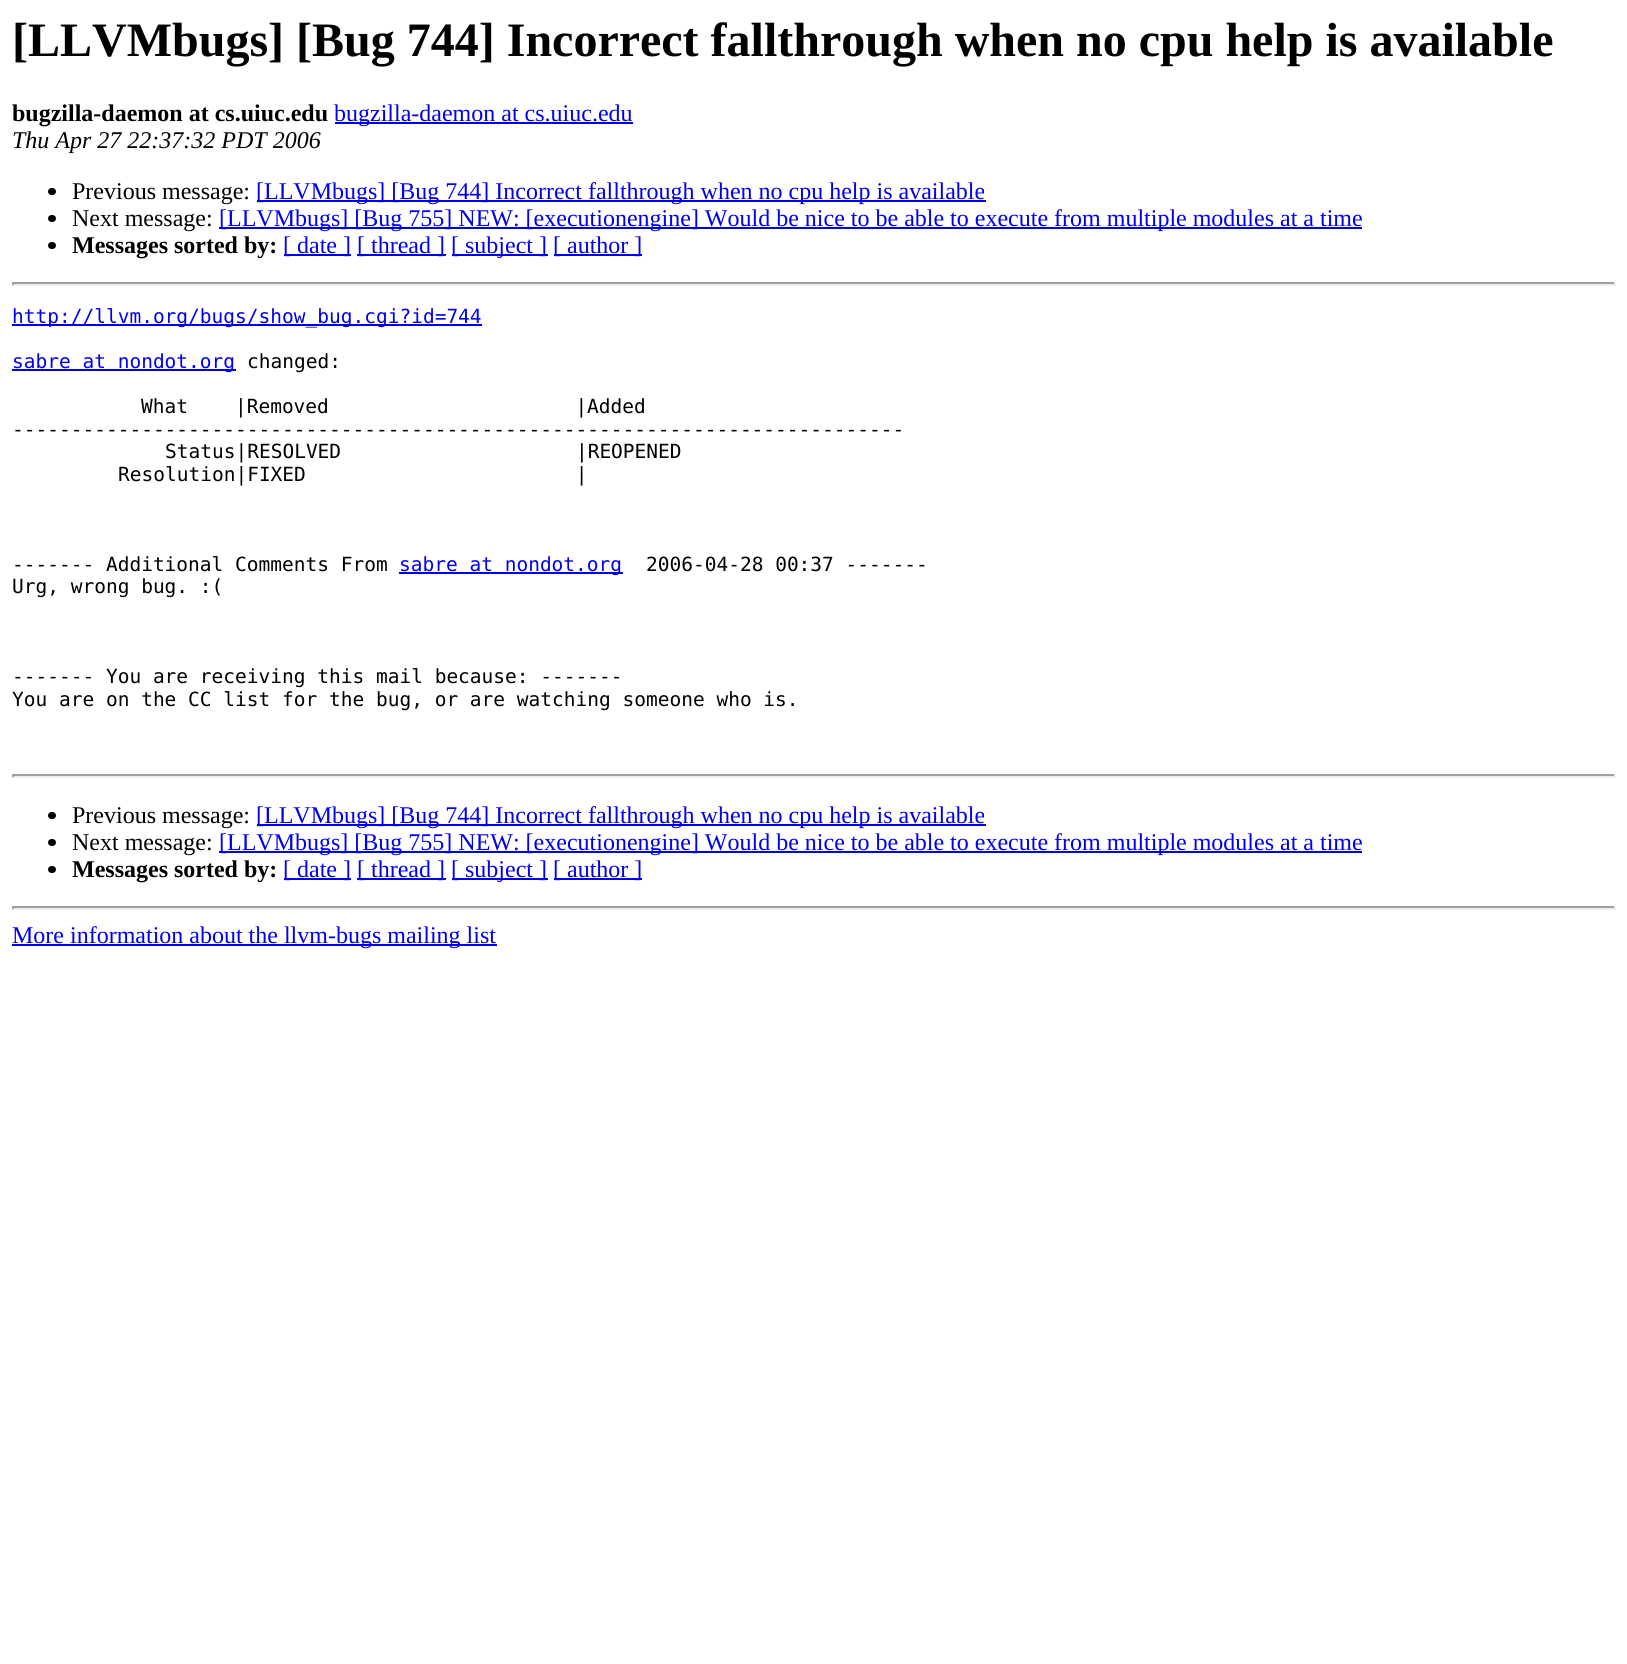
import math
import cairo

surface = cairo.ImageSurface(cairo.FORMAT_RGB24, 1627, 1664)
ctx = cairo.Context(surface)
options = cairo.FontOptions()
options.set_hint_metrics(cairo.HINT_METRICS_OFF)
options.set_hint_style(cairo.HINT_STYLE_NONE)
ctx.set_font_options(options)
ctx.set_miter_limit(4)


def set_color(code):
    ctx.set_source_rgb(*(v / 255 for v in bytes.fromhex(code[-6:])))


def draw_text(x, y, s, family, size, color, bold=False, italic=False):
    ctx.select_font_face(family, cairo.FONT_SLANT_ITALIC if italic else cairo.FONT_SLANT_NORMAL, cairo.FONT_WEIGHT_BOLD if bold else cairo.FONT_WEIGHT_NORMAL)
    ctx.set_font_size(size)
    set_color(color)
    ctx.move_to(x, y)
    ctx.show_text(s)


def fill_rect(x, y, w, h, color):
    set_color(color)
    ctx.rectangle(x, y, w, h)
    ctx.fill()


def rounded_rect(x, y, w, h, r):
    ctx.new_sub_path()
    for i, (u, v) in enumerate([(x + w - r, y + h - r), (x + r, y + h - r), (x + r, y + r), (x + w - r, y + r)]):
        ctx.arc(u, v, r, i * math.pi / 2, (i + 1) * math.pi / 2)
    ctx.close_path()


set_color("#ffffff")
ctx.paint()
draw_text(12, 56, "[LLVMbugs] [Bug 744] Incorrect fallthrough when no cpu help is available", "Liberation Serif", 48, "#000000", bold=True)
draw_text(12, 121, "bugzilla-daemon at cs.uiuc.edu", "Liberation Serif", 24, "#000000", bold=True)
fill_rect(335, 122, 298, 2, "#0000ee")
draw_text(334, 121, "bugzilla-daemon at cs.uiuc.edu", "Liberation Serif", 24, "#0000ee")
draw_text(12, 148, "Thu Apr 27 22:37:32 PDT 2006", "Liberation Serif", 24, "#000000", italic=True)
rounded_rect(48, 188, 8, 7, 3.5)
ctx.fill()
draw_text(72, 199, "Previous message:", "Liberation Serif", 24, "#000000")
fill_rect(257, 200, 729, 2, "#0000ee")
draw_text(256, 199, "[LLVMbugs] [Bug 744] Incorrect fallthrough when no cpu help is available", "Liberation Serif", 24, "#0000ee")
set_color("#000000")
rounded_rect(48, 215, 8, 7, 3.5)
ctx.fill()
draw_text(72, 226, "Next message:", "Liberation Serif", 24, "#000000")
fill_rect(219, 227, 1143, 2, "#0000ee")
draw_text(219, 226, "[LLVMbugs] [Bug 755] NEW: [executionengine] Would be nice to be able to execute from multiple modules at a time", "Liberation Serif", 24, "#0000ee")
set_color("#000000")
rounded_rect(48, 242, 8, 7, 3.5)
ctx.fill()
draw_text(72, 253, "Messages sorted by:", "Liberation Serif", 24, "#000000", bold=True)
fill_rect(284, 254, 67, 2, "#0000ee")
draw_text(283, 253, "[ date ]", "Liberation Serif", 24, "#0000ee")
fill_rect(357, 254, 89, 2, "#0000ee")
draw_text(357, 253, "[ thread ]", "Liberation Serif", 24, "#0000ee")
fill_rect(452, 254, 96, 2, "#0000ee")
draw_text(451, 253, "[ subject ]", "Liberation Serif", 24, "#0000ee")
fill_rect(554, 254, 88, 2, "#0000ee")
draw_text(553, 253, "[ author ]", "Liberation Serif", 24, "#0000ee")
fill_rect(12, 282, 1604, 2, "#9f9f9f")
fill_rect(1614, 282, 2, 3, "#eeeeee")
fill_rect(12, 284, 1604, 2, "#eeeeee")
fill_rect(12, 282, 2, 3, "#9f9f9f")
fill_rect(12, 324, 470, 2, "#0000ee")
draw_text(12, 323, "http://llvm.org/bugs/show_bug.cgi?id=744", "DejaVu Sans Mono", 19.5, "#0000ee")
fill_rect(12, 369, 224, 2, "#0000ee")
draw_text(12, 368, "sabre at nondot.org", "DejaVu Sans Mono", 19.5, "#0000ee")
draw_text(247, 368, "changed:", "DejaVu Sans Mono", 19.5, "#000000")
draw_text(141, 413, "What    |Removed                     |Added", "DejaVu Sans Mono", 19.5, "#000000")
draw_text(12, 436, "----------------------------------------------------------------------------", "DejaVu Sans Mono", 19.5, "#000000")
draw_text(165, 458, "Status|RESOLVED                    |REOPENED", "DejaVu Sans Mono", 19.5, "#000000")
draw_text(118, 481, "Resolution|FIXED                       |", "DejaVu Sans Mono", 19.5, "#000000")
draw_text(12, 571, "------- Additional Comments From", "DejaVu Sans Mono", 19.5, "#000000")
fill_rect(399, 572, 224, 2, "#0000ee")
draw_text(399, 571, "sabre at nondot.org", "DejaVu Sans Mono", 19.5, "#0000ee")
draw_text(646, 571, "2006-04-28 00:37 -------", "DejaVu Sans Mono", 19.5, "#000000")
draw_text(12, 593, "Urg, wrong bug. :(", "DejaVu Sans Mono", 19.5, "#000000")
draw_text(12, 683, "------- You are receiving this mail because: -------", "DejaVu Sans Mono", 19.5, "#000000")
draw_text(12, 706, "You are on the CC list for the bug, or are watching someone who is.", "DejaVu Sans Mono", 19.5, "#000000")
fill_rect(12, 774, 1604, 2, "#9f9f9f")
fill_rect(1614, 774, 2, 3, "#eeeeee")
fill_rect(12, 776, 1604, 2, "#eeeeee")
fill_rect(12, 774, 2, 3, "#9f9f9f")
set_color("#000000")
rounded_rect(48, 812, 8, 7, 3.5)
ctx.fill()
draw_text(72, 823, "Previous message:", "Liberation Serif", 24, "#000000")
fill_rect(257, 824, 729, 2, "#0000ee")
draw_text(256, 823, "[LLVMbugs] [Bug 744] Incorrect fallthrough when no cpu help is available", "Liberation Serif", 24, "#0000ee")
set_color("#000000")
rounded_rect(48, 839, 8, 7, 3.5)
ctx.fill()
draw_text(72, 850, "Next message:", "Liberation Serif", 24, "#000000")
fill_rect(219, 851, 1143, 2, "#0000ee")
draw_text(219, 850, "[LLVMbugs] [Bug 755] NEW: [executionengine] Would be nice to be able to execute from multiple modules at a time", "Liberation Serif", 24, "#0000ee")
set_color("#000000")
rounded_rect(48, 866, 8, 7, 3.5)
ctx.fill()
draw_text(72, 877, "Messages sorted by:", "Liberation Serif", 24, "#000000", bold=True)
fill_rect(284, 878, 67, 2, "#0000ee")
draw_text(283, 877, "[ date ]", "Liberation Serif", 24, "#0000ee")
fill_rect(357, 878, 89, 2, "#0000ee")
draw_text(357, 877, "[ thread ]", "Liberation Serif", 24, "#0000ee")
fill_rect(452, 878, 96, 2, "#0000ee")
draw_text(451, 877, "[ subject ]", "Liberation Serif", 24, "#0000ee")
fill_rect(554, 878, 88, 2, "#0000ee")
draw_text(553, 877, "[ author ]", "Liberation Serif", 24, "#0000ee")
fill_rect(12, 906, 1604, 2, "#9f9f9f")
fill_rect(1614, 906, 2, 3, "#eeeeee")
fill_rect(12, 908, 1604, 2, "#eeeeee")
fill_rect(12, 906, 2, 3, "#9f9f9f")
fill_rect(12, 944, 485, 2, "#0000ee")
draw_text(12, 943, "More information about the llvm-bugs mailing list", "Liberation Serif", 24, "#0000ee")
surface.write_to_png("output.png")
